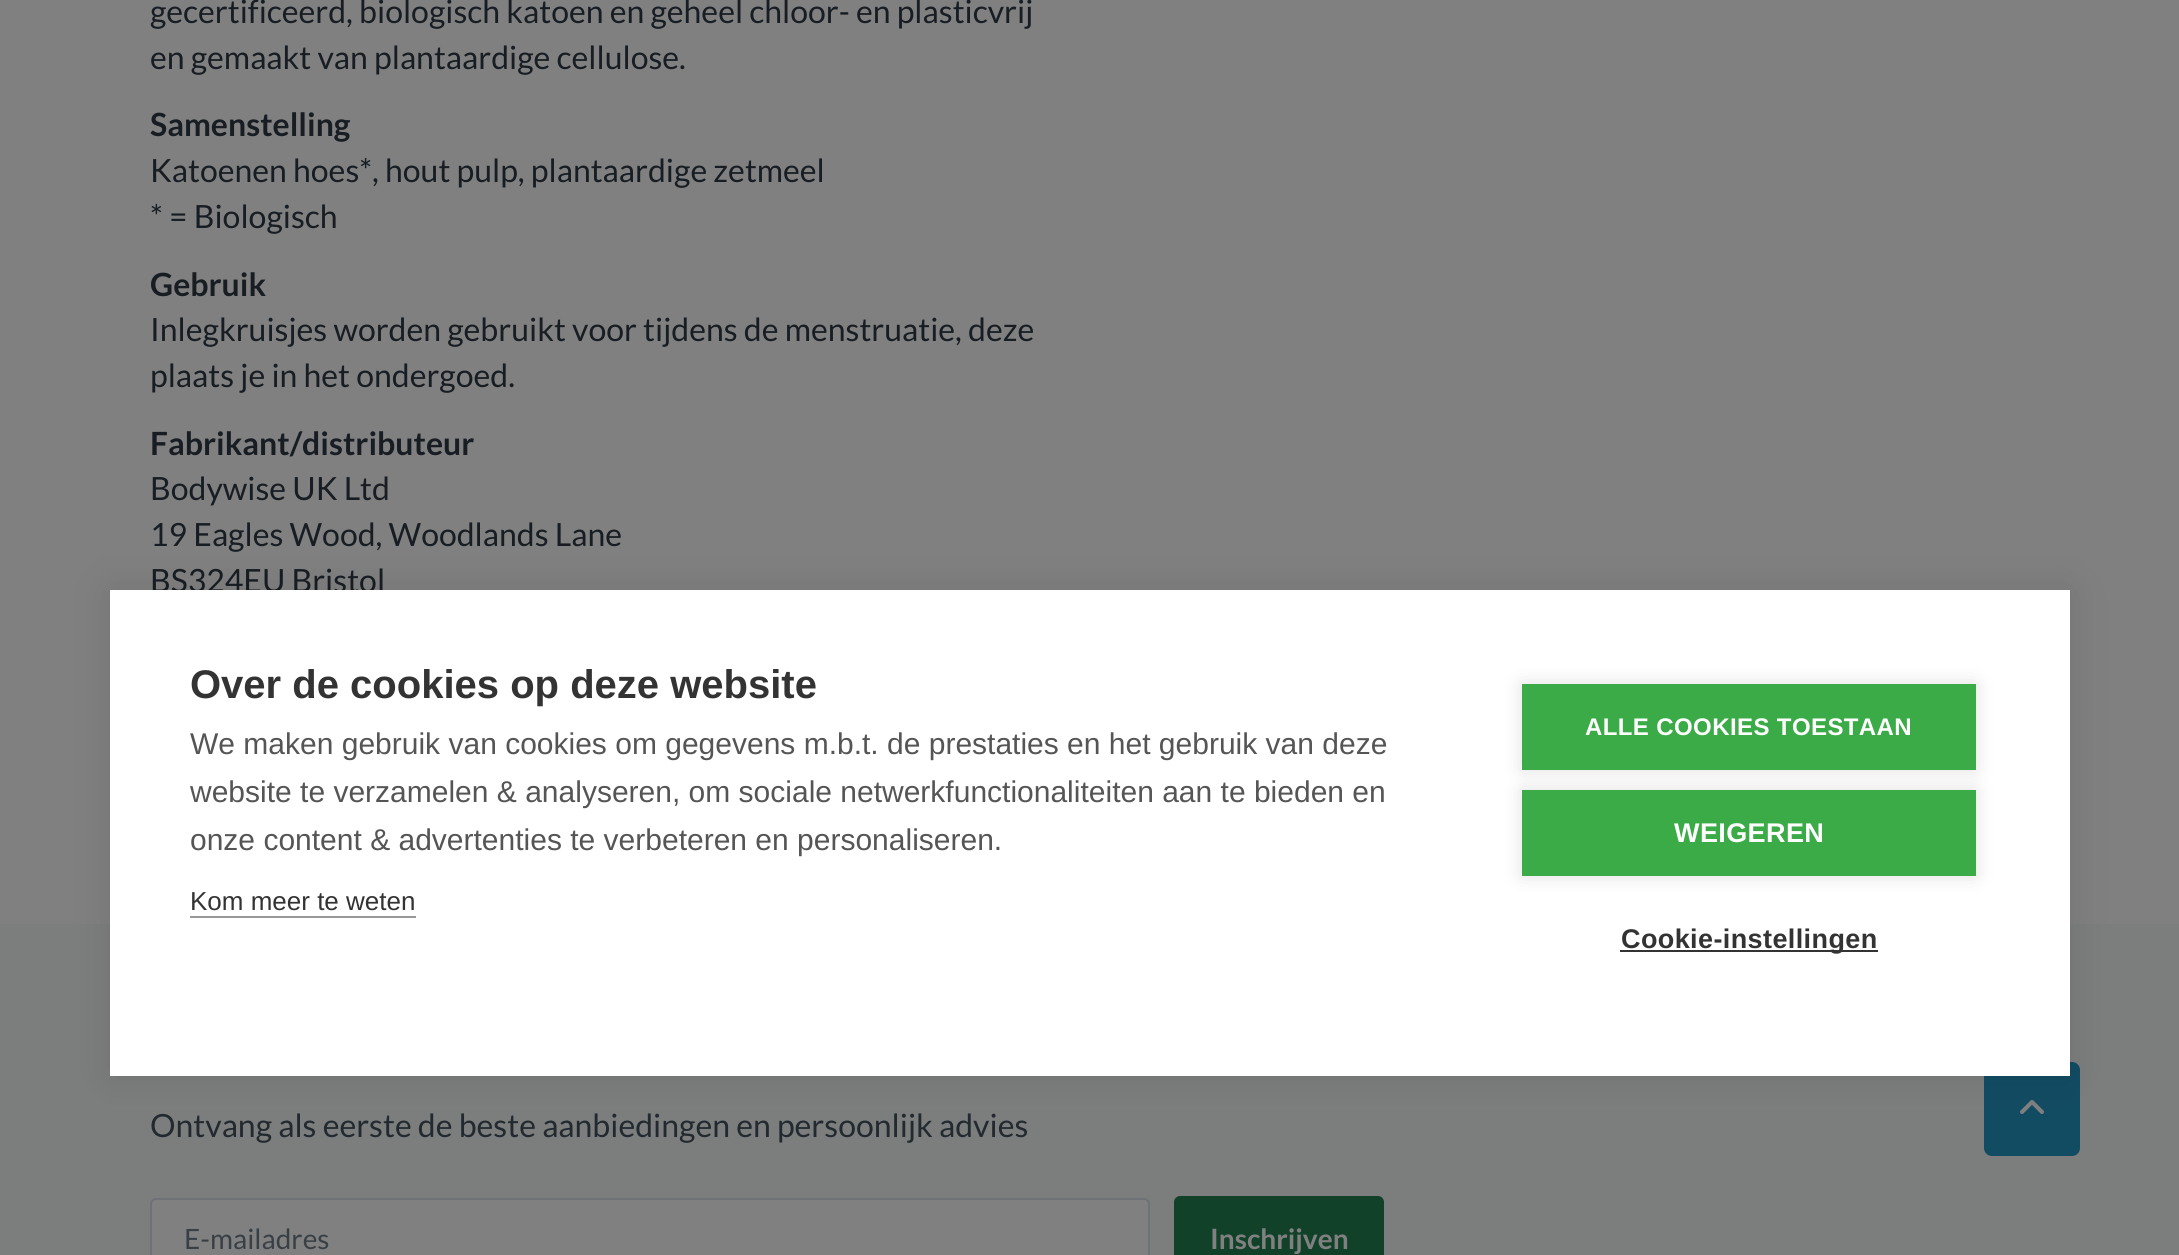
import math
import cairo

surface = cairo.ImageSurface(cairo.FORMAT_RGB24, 2179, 1255)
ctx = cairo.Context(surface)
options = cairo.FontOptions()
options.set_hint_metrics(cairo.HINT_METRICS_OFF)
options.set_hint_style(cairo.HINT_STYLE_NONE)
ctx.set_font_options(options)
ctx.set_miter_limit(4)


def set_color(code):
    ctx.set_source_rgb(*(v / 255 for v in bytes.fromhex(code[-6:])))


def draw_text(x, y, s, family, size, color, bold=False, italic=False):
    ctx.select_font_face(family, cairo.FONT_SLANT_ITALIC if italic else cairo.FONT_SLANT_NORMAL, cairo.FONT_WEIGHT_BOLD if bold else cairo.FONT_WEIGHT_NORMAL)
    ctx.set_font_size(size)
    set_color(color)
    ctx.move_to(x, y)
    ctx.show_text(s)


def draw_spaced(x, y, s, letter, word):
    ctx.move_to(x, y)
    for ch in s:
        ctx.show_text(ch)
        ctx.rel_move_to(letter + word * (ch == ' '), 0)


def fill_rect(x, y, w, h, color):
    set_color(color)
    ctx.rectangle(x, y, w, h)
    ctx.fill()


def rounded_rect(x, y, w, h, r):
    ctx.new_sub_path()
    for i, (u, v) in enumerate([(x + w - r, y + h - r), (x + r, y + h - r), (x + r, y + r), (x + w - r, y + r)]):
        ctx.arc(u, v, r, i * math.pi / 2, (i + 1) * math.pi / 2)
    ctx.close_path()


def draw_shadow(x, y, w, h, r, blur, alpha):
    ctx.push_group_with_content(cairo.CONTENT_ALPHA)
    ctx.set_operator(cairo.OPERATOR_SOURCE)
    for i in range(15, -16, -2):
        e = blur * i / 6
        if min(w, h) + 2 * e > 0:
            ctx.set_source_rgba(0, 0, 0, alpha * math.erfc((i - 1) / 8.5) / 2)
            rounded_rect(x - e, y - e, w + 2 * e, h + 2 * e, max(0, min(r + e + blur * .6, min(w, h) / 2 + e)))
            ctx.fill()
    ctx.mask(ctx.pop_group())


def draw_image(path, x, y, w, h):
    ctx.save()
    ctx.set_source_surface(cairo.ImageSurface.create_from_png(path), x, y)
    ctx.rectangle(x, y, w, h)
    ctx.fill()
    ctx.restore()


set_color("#808080")
ctx.paint()
draw_text(150, 23, "gecertificeerd, biologisch katoen en geheel chloor- en plasticvrij", "Lato", 32, "#171d22")
draw_text(150, 69, "en gemaakt van plantaardige cellulose.", "Lato", 32, "#171d22")
draw_text(150, 136, "Samenstelling", "Lato", 32, "#171d22", bold=True)
draw_text(150, 182, "Katoenen hoes*, hout pulp, plantaardige zetmeel", "Lato", 32, "#171d22")
draw_text(150, 228, "* = Biologisch", "Lato", 32, "#171d22")
draw_text(150, 296, "Gebruik", "Lato", 32, "#171d22", bold=True)
draw_text(150, 341, "Inlegkruisjes worden gebruikt voor tijdens de menstruatie, deze", "Lato", 32, "#171d22")
draw_text(150, 387, "plaats je in het ondergoed.", "Lato", 32, "#171d22")
draw_text(150, 455, "Fabrikant/distributeur", "Lato", 32, "#171d22", bold=True)
draw_text(150, 500, "Bodywise UK Ltd", "Lato", 32, "#171d22")
draw_text(150, 546, "19 Eagles Wood, Woodlands Lane", "Lato", 32, "#171d22")
draw_text(150, 592, "BS324EU Bristol", "Lato", 32, "#171d22")
fill_rect(0, 924, 2179, 331, "#7c7d7d")
draw_text(150, 1137, "Ontvang als eerste de beste aanbiedingen en persoonlijk advies", "Lato", 32, "#222a30")
set_color("#808080")
rounded_rect(151, 1199, 998, 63, 5)
ctx.fill_preserve()
set_color("#6e7276")
ctx.stroke()
draw_text(184, 1249, "E-mailadres", "Lato", 28, "#384046")
set_color("#124129")
rounded_rect(1176, 1198, 206, 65, 4)
ctx.fill_preserve()
ctx.set_line_width(4)
ctx.stroke()
draw_text(1210, 1249, "Inschrijven", "Lato", 28, "#808080", bold=True)
set_color("#124c63")
rounded_rect(1986, 1064, 92, 90, 6)
ctx.fill_preserve()
ctx.stroke()
draw_image("assets/img1.png", 2020, 1100, 24, 14)
set_color("#000000")
draw_shadow(110, 590, 1960, 486, 0, 20, 0.1)
fill_rect(110, 590, 1960, 486, "#ffffff")
draw_text(190, 698, "Over de cookies op deze website", "Liberation Sans", 40, "#333333", bold=True)
draw_text(190, 754, "We maken gebruik van cookies om gegevens m.b.t. de prestaties en het gebruik van deze", "Liberation Sans", 30, "#555555")
draw_text(190, 802, "website te verzamelen & analyseren, om sociale netwerkfunctionaliteiten aan te bieden en", "Liberation Sans", 30, "#555555")
draw_text(190, 850, "onze content & advertenties te verbeteren en personaliseren.", "Liberation Sans", 30, "#555555")
draw_text(190, 910, "Kom meer te weten", "Liberation Sans", 26, "#333333")
fill_rect(190, 916, 226, 2, "#999999")
set_color("#000000")
draw_shadow(1522, 684, 454, 86, 0, 10, 0.12)
fill_rect(1522, 684, 454, 86, "#3aab47")
ctx.select_font_face("Liberation Sans", cairo.FONT_SLANT_NORMAL, cairo.FONT_WEIGHT_BOLD)
ctx.set_font_size(24)
set_color("#ffffff")
draw_spaced(1585, 735, "ALLE COOKIES TOESTAAN", 0.4, 0)
set_color("#000000")
draw_shadow(1522, 790, 454, 86, 0, 10, 0.12)
fill_rect(1522, 790, 454, 86, "#3aab47")
ctx.set_font_size(27)
set_color("#ffffff")
draw_spaced(1674, 842, "WEIGEREN", 0.4, 0)
fill_rect(1620, 950, 258, 2, "#333333")
draw_spaced(1621, 948, "Cookie-instellingen", 0.4, 0)
surface.write_to_png("output.png")
